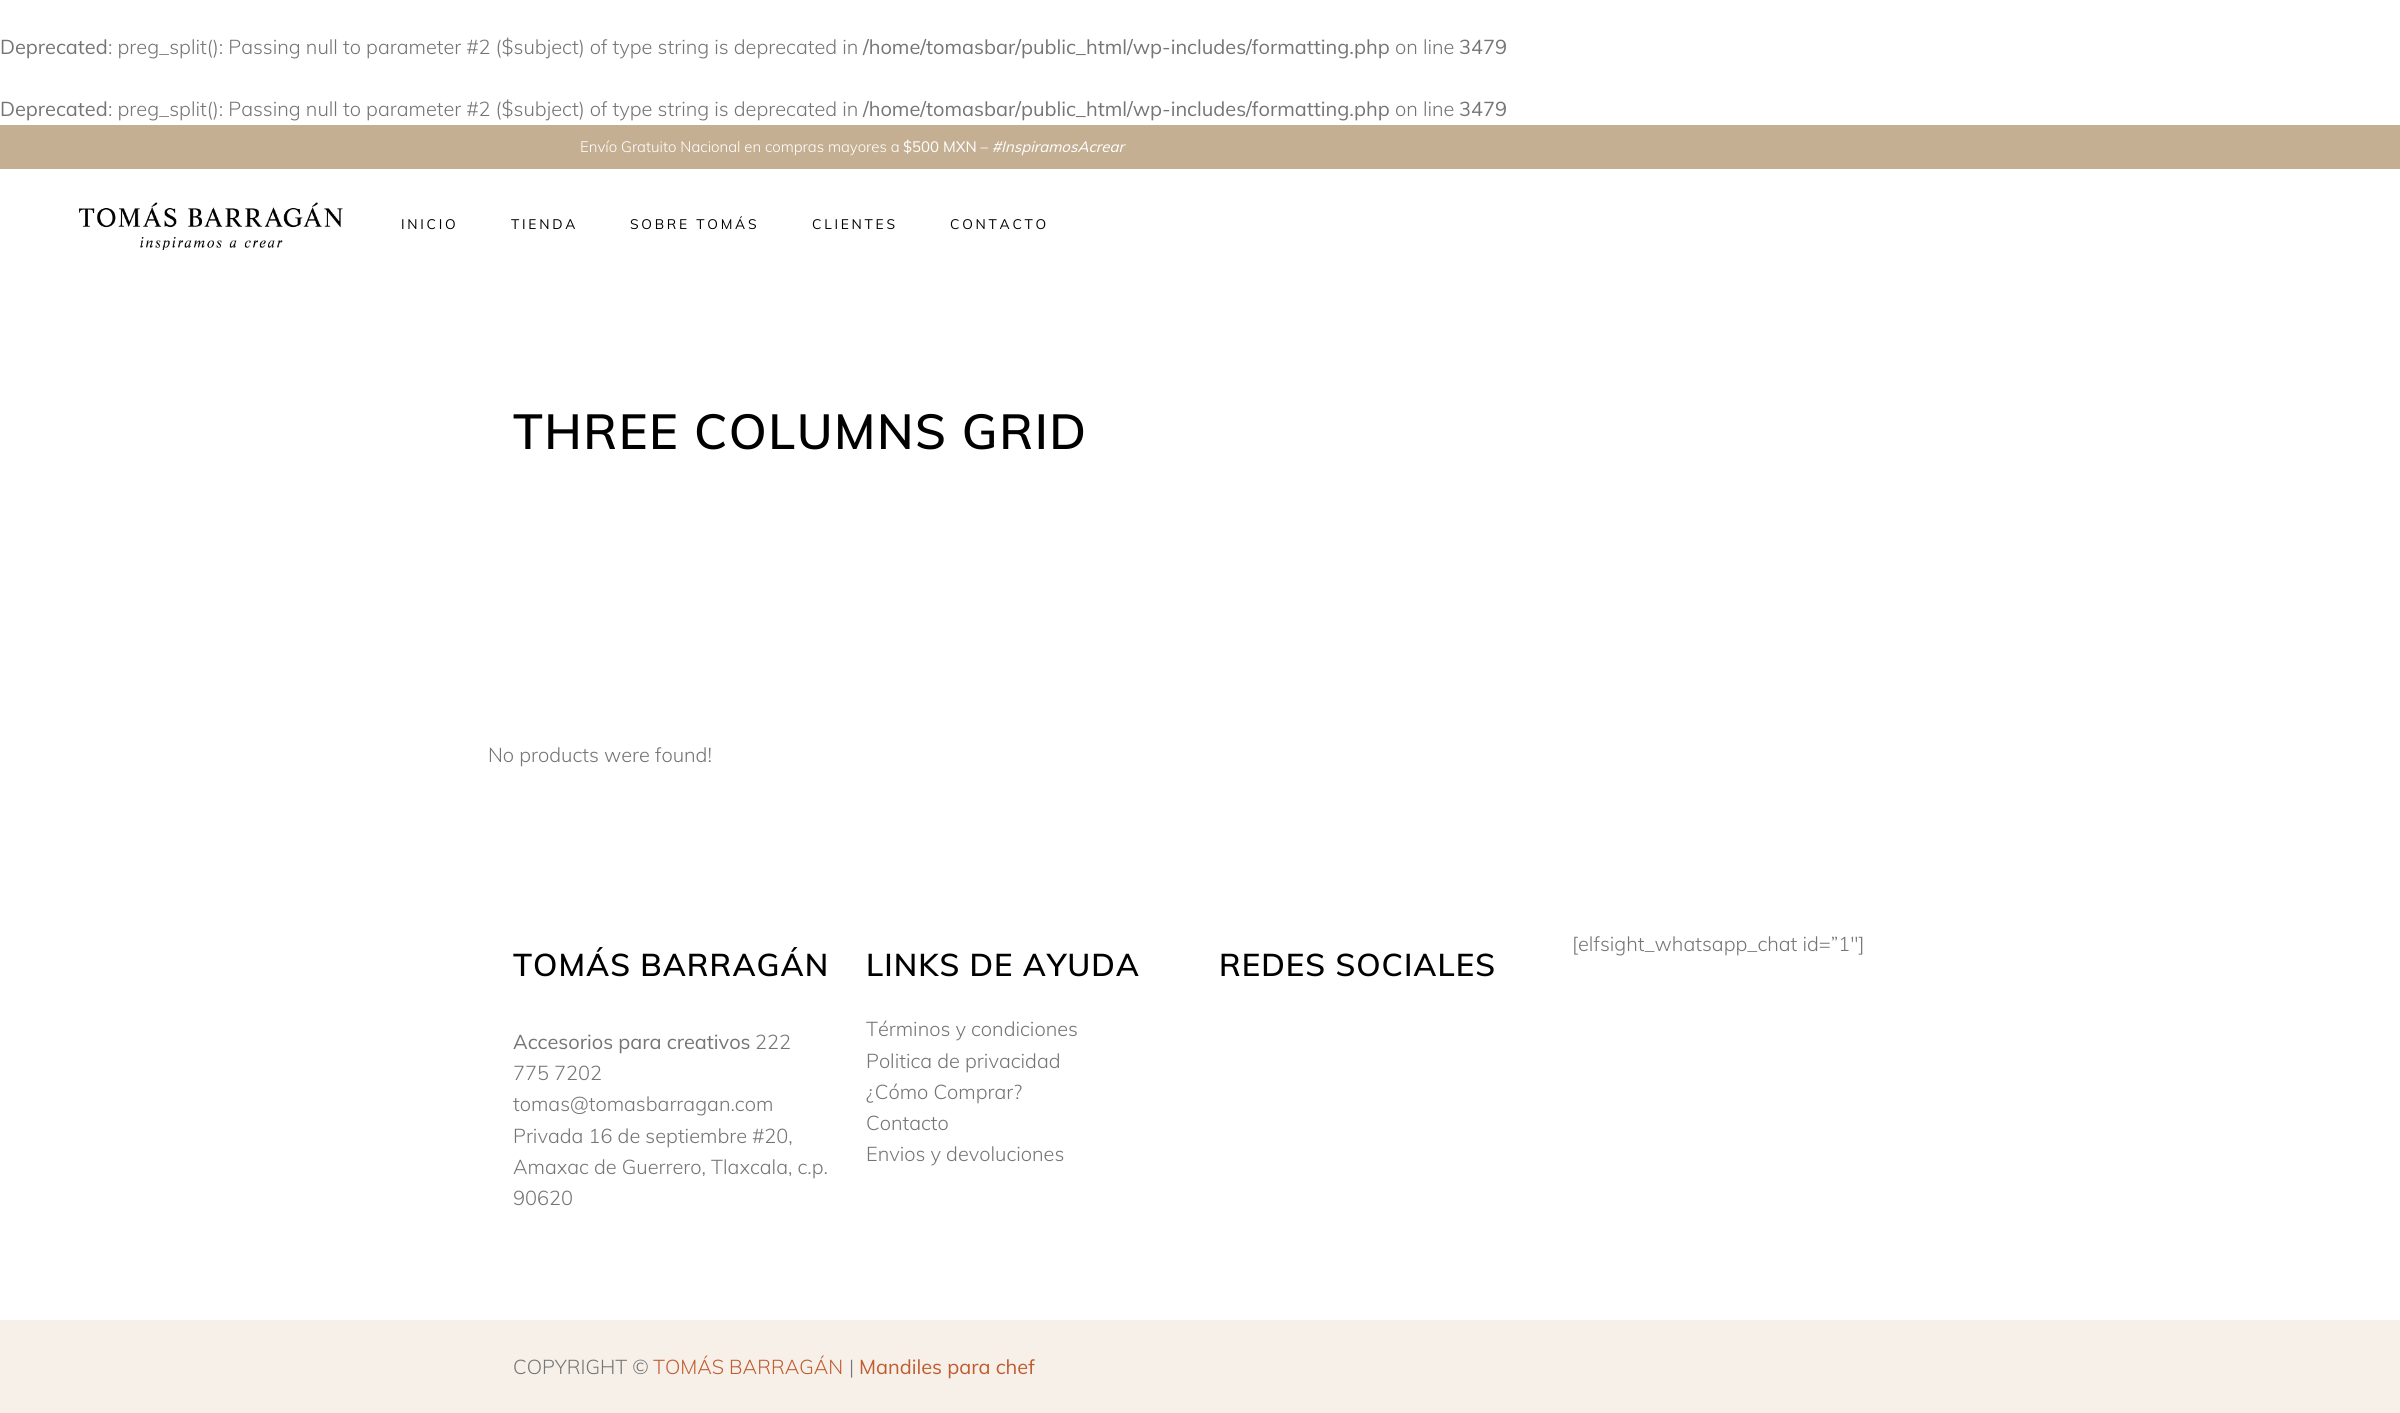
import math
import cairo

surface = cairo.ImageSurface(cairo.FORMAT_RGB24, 2400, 1413)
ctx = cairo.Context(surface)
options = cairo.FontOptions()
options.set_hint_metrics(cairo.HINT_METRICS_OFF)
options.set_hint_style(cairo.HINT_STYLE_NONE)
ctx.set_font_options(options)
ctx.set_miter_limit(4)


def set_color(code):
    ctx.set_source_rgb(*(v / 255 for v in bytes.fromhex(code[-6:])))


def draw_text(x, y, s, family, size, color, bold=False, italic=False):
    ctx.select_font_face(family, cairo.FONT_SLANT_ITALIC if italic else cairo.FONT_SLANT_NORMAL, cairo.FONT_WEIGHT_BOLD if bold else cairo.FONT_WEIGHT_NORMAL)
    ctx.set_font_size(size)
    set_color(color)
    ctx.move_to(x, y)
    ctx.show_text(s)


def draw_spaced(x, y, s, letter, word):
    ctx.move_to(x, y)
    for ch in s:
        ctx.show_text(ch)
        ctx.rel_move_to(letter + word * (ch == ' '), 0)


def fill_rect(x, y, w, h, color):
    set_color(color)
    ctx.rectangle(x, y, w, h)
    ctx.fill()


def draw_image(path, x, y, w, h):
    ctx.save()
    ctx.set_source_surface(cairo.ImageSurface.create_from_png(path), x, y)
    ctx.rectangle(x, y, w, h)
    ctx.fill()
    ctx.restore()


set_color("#ffffff")
ctx.paint()
draw_text(0, 54, "Deprecated", "Muli", 20, "#757575")
draw_text(108, 54, ": preg_split(): Passing null to parameter #2 ($subject) of type string is deprecated in", "Muli Light", 20, "#757575")
draw_text(863, 54, "/home/tomasbar/public_html/wp-includes/formatting.php", "Muli", 20, "#757575")
draw_text(1395, 54, "on line", "Muli Light", 20, "#757575")
draw_text(1459, 54, "3479", "Muli", 20, "#757575")
draw_text(0, 116, "Deprecated", "Muli", 20, "#757575")
draw_text(108, 116, ": preg_split(): Passing null to parameter #2 ($subject) of type string is deprecated in", "Muli Light", 20, "#757575")
draw_text(863, 116, "/home/tomasbar/public_html/wp-includes/formatting.php", "Muli", 20, "#757575")
draw_text(1395, 116, "on line", "Muli Light", 20, "#757575")
draw_text(1459, 116, "3479", "Muli", 20, "#757575")
fill_rect(0, 125, 2400, 44, "#c5af93")
draw_text(580, 152, "Envío Gratuito Nacional en compras mayores a", "Muli Light", 15, "#ffffff")
draw_text(903, 152, "$500 MXN –", "Muli", 15, "#ffffff")
draw_text(992, 152, "#InspiramosAcrear", "Muli", 15, "#ffffff", italic=True)
draw_image("assets/img1.png", 79, 202, 264, 48)
ctx.select_font_face("Muli")
ctx.set_font_size(13.75)
set_color("#000000")
draw_spaced(401, 229, "INICIO", 2.75, 0)
draw_spaced(511, 229, "TIENDA", 2.75, 0)
draw_spaced(630, 229, "SOBRE TOMÁS", 2.75, 0)
draw_spaced(812, 229, "CLIENTES", 2.75, 0)
draw_spaced(950, 229, "CONTACTO", 2.75, 0)
ctx.select_font_face("Muli SemiBold")
ctx.set_font_size(48.75)
draw_spaced(513, 449, "THREE COLUMNS GRID", 1.5, 0)
draw_text(488, 762, "No products were found!", "Muli Light", 20, "#757575")
ctx.select_font_face("Muli SemiBold")
ctx.set_font_size(31.25)
set_color("#000000")
draw_spaced(513, 976, "TOMÁS BARRAGÁN", 1, 0)
draw_text(513, 1049, "Accesorios para creativos", "Muli", 20, "#757575")
draw_text(755, 1049, "222", "Muli Light", 20, "#757575")
draw_text(513, 1080, "775 7202", "Muli Light", 20, "#757575")
draw_text(513, 1111, "tomas@tomasbarragan.com", "Muli Light", 20, "#757575")
draw_text(513, 1143, "Privada 16 de septiembre #20,", "Muli Light", 20, "#757575")
draw_text(513, 1174, "Amaxac de Guerrero, Tlaxcala, c.p.", "Muli Light", 20, "#757575")
draw_text(513, 1205, "90620", "Muli Light", 20, "#757575")
ctx.select_font_face("Muli SemiBold")
ctx.set_font_size(31.25)
set_color("#000000")
draw_spaced(866, 976, "LINKS DE AYUDA", 1, 0)
draw_text(866, 1036, "Términos y condiciones", "Muli Light", 20, "#757575")
draw_text(866, 1068, "Politica de privacidad", "Muli Light", 20, "#757575")
draw_text(866, 1099, "¿Cómo Comprar?", "Muli Light", 20, "#757575")
draw_text(866, 1130, "Contacto", "Muli Light", 20, "#757575")
draw_text(866, 1161, "Envios y devoluciones", "Muli Light", 20, "#757575")
ctx.select_font_face("Muli SemiBold")
ctx.set_font_size(31.25)
set_color("#000000")
draw_spaced(1219, 976, "REDES SOCIALES", 1, 0)
draw_text(1572, 951, "[elfsight_whatsapp_chat id=”1″]", "Muli Light", 20, "#757575")
fill_rect(0, 1320, 2400, 93, "#f6f0e9")
draw_text(513, 1374, "COPYRIGHT ©", "Muli Light", 20, "#757575")
draw_text(653, 1374, "TOMÁS BARRAGÁN", "Muli Light", 20, "#bf5c30")
draw_text(849, 1374, "|", "Muli Light", 20, "#757575")
draw_text(859, 1374, "Mandiles para chef", "Muli", 20, "#bf5c30")
surface.write_to_png("output.png")
